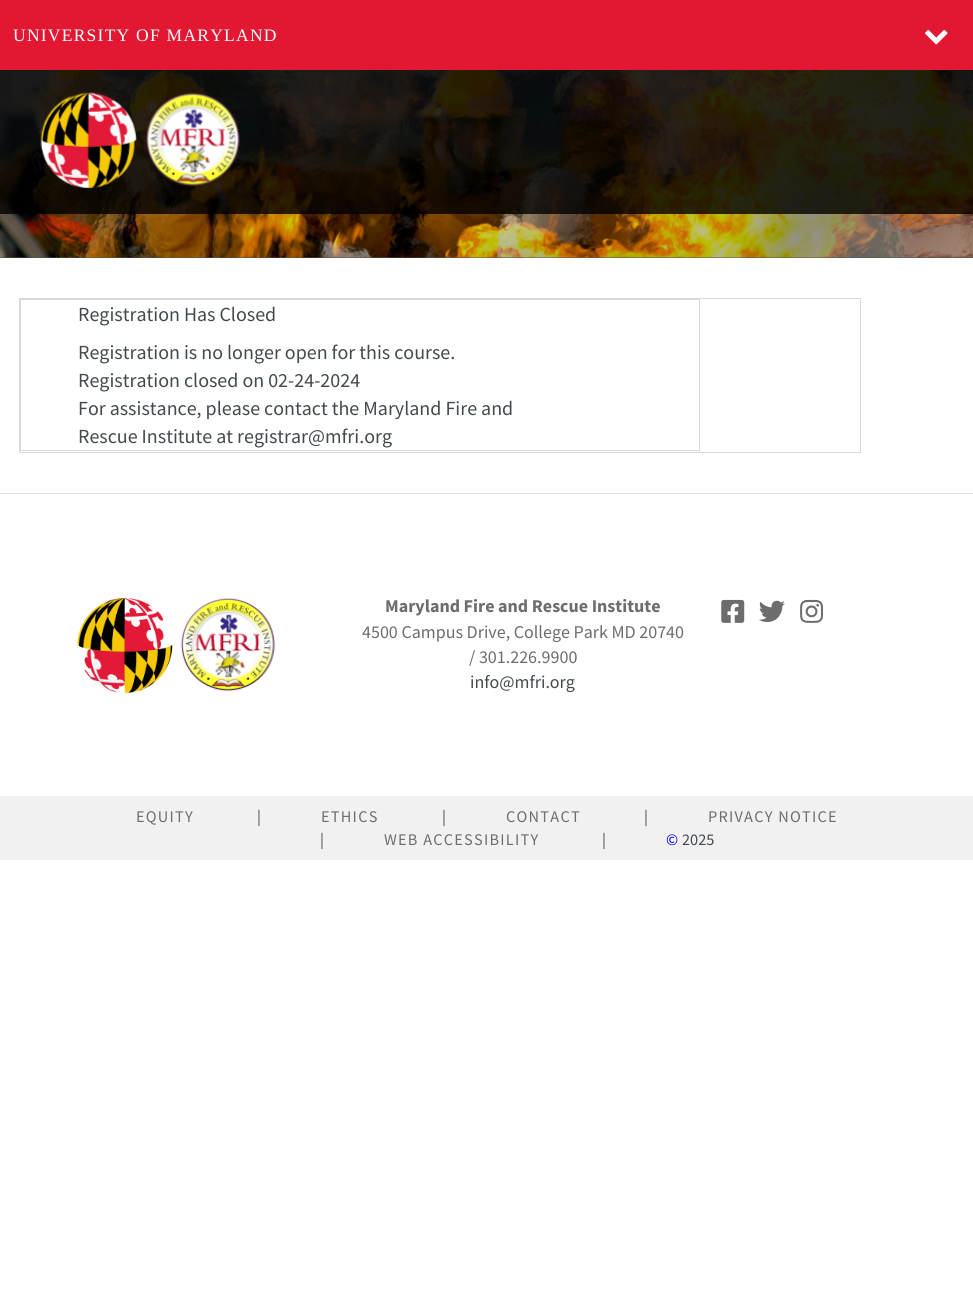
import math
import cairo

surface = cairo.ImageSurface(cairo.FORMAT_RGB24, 973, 1295)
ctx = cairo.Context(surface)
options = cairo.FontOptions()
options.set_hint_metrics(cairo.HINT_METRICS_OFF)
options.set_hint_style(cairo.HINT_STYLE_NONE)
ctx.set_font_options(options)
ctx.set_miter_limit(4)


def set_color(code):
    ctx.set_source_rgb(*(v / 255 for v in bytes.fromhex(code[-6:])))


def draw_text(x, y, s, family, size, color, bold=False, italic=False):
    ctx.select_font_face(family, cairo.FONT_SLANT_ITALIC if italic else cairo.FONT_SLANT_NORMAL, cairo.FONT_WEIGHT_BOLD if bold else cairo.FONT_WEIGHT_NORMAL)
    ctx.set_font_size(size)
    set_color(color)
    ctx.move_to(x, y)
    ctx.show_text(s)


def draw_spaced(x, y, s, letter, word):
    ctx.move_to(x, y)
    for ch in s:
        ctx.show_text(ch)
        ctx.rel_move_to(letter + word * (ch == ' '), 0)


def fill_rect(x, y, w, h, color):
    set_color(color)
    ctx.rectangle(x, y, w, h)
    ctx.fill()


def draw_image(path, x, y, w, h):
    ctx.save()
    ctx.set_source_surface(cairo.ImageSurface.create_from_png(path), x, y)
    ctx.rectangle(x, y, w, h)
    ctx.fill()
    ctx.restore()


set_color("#ffffff")
ctx.paint()
fill_rect(0, 0, 973, 70, "#e21833")
ctx.select_font_face("Liberation Serif")
ctx.set_font_size(17.5)
set_color("#ffffff")
draw_spaced(13, 41, "UNIVERSITY OF MARYLAND", 1.25, 0)
draw_image("assets/img1.png", 925, 30, 23, 15)
fill_rect(0, 257, 973, 1, "#525252")
draw_image("assets/img2.png", 0, 70, 973, 188)
ctx.set_source_rgba(0, 0, 0, 0.8)
ctx.rectangle(0, 70, 973, 144)
ctx.fill()
draw_image("assets/img3.png", 40, 92, 97, 97)
draw_image("assets/img4.png", 145, 92, 95, 95)
ctx.rectangle(19.5, 298.5, 841, 154)
set_color("#d9d9d9")
ctx.set_line_width(1)
ctx.stroke()
ctx.rectangle(20.5, 299.5, 679, 151)
ctx.stroke()
draw_text(78, 321, "Registration Has Closed", "Source Sans Pro", 20, "#434a4f")
draw_text(78, 359, "Registration is no longer open for this course.", "Source Sans Pro", 20, "#434a4f")
draw_text(78, 387, "Registration closed on 02-24-2024", "Source Sans Pro", 20, "#434a4f")
draw_text(78, 415, "For assistance, please contact the Maryland Fire and", "Source Sans Pro", 20, "#434a4f")
draw_text(78, 443, "Rescue Institute at registrar@mfri.org", "Source Sans Pro", 20, "#434a4f")
fill_rect(0, 493, 973, 1, "#e1e1e1")
draw_image("assets/img5.png", 77, 597, 96, 97)
draw_image("assets/img6.png", 180, 597, 95, 95)
draw_text(385, 612, "Maryland Fire and Rescue Institute", "Source Sans Pro", 18, "#6d6d6d", bold=True)
draw_text(362, 638, "4500 Campus Drive, College Park MD 20740", "Source Sans Pro", 18, "#6d6d6d")
draw_text(469, 663, "/ 301.226.9900", "Source Sans Pro", 18, "#6d6d6d")
draw_text(470, 688, "info@mfri.org", "Source Sans Pro", 18, "#434a4f")
draw_image("assets/img7.png", 721, 599, 24, 24)
draw_image("assets/img8.png", 759, 600, 26, 23)
draw_image("assets/img9.png", 800, 599, 23, 24)
fill_rect(0, 796, 973, 64, "#f1f1f1")
ctx.set_font_size(16.25)
set_color("#6d6d6d")
draw_spaced(136, 822, "EQUITY", 1.25, 0)
draw_text(257, 822, "|", "Source Sans Pro", 16.25, "#434a4f")
set_color("#6d6d6d")
draw_spaced(321, 822, "ETHICS", 1.25, 0)
draw_text(442, 822, "|", "Source Sans Pro", 16.25, "#434a4f")
set_color("#6d6d6d")
draw_spaced(506, 822, "CONTACT", 1.25, 0)
draw_text(644, 822, "|", "Source Sans Pro", 16.25, "#434a4f")
set_color("#6d6d6d")
draw_spaced(708, 822, "PRIVACY NOTICE", 1.25, 0)
draw_text(320, 845, "|", "Source Sans Pro", 16.25, "#434a4f")
set_color("#6d6d6d")
draw_spaced(384, 845, "WEB ACCESSIBILITY", 1.25, 0)
draw_text(602, 845, "|", "Source Sans Pro", 16.25, "#434a4f")
draw_text(666, 845, "©", "Source Sans Pro", 16.25, "#0000ff")
draw_text(682, 845, "2025", "Source Sans Pro", 16.25, "#434a4f")
surface.write_to_png("output.png")
